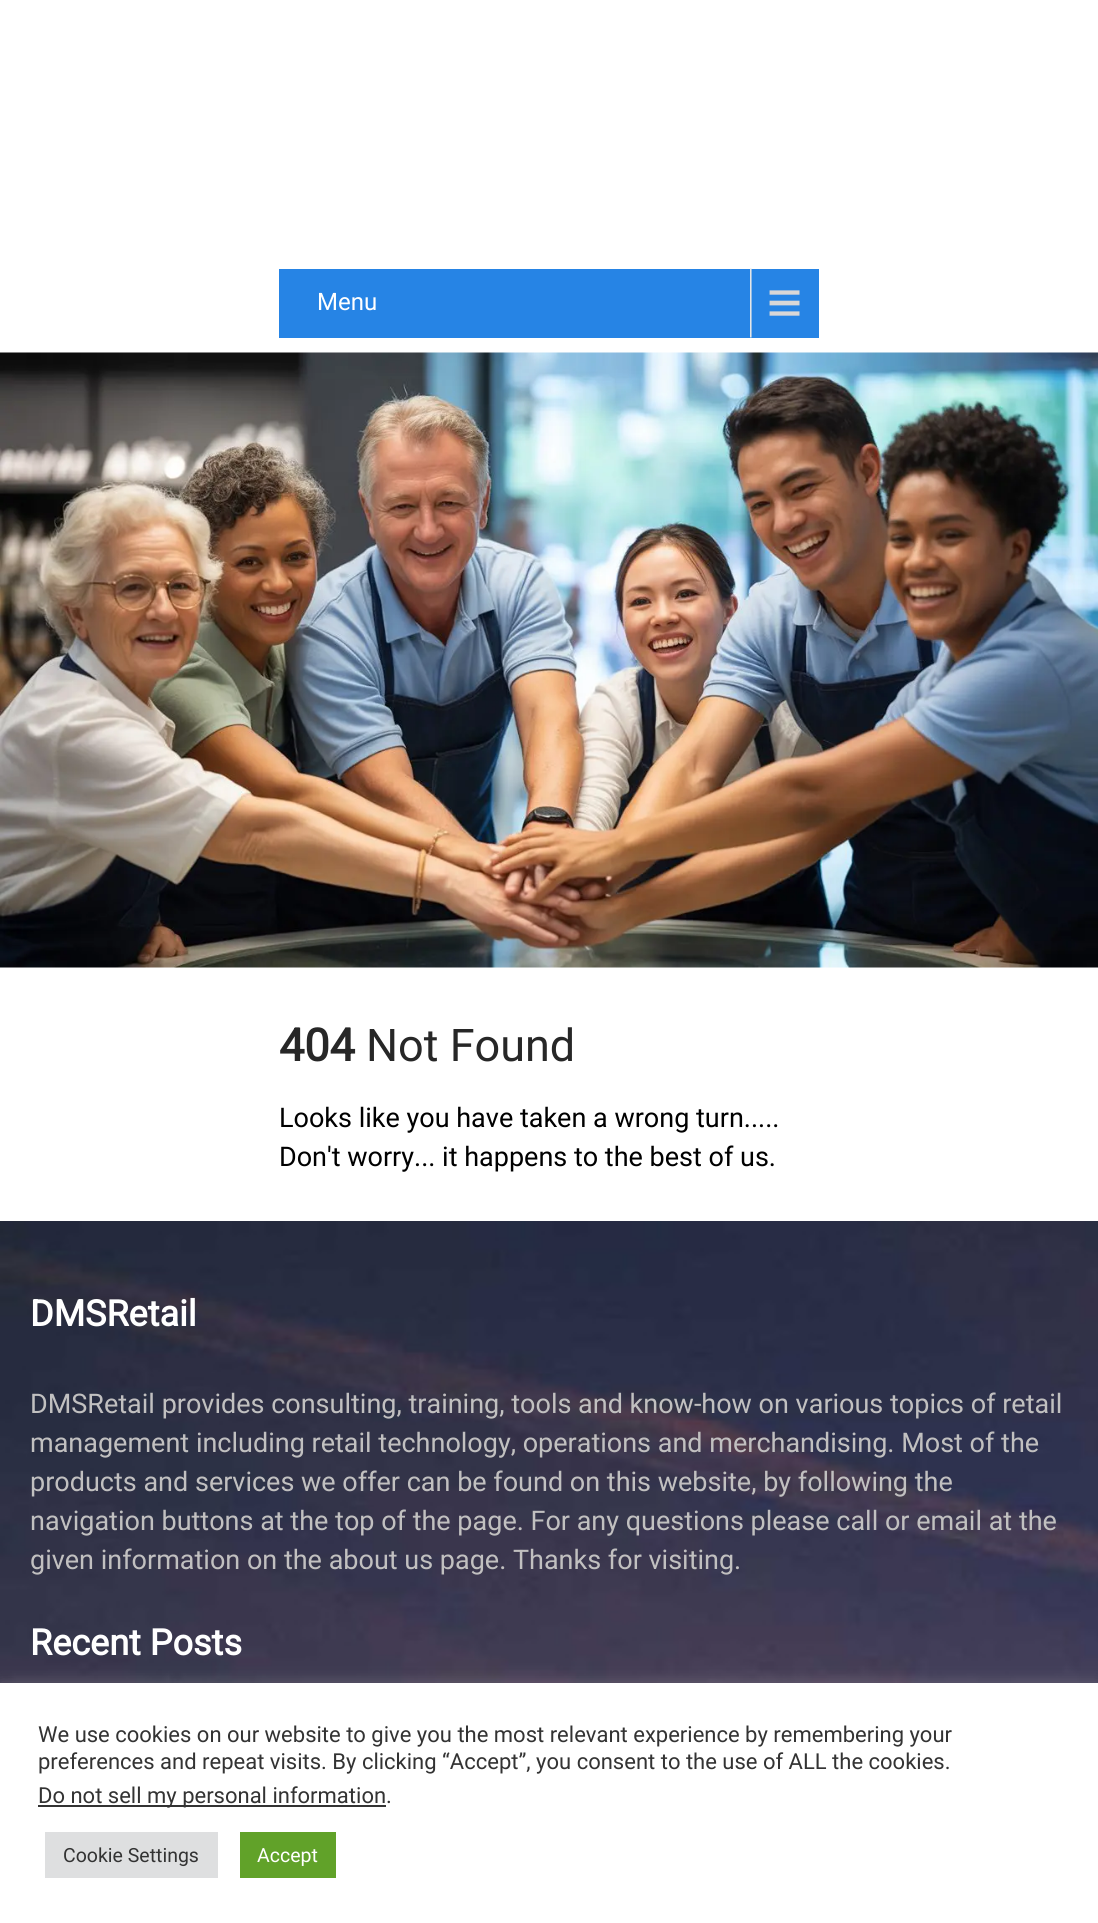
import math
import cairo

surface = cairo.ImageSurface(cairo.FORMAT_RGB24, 1098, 1923)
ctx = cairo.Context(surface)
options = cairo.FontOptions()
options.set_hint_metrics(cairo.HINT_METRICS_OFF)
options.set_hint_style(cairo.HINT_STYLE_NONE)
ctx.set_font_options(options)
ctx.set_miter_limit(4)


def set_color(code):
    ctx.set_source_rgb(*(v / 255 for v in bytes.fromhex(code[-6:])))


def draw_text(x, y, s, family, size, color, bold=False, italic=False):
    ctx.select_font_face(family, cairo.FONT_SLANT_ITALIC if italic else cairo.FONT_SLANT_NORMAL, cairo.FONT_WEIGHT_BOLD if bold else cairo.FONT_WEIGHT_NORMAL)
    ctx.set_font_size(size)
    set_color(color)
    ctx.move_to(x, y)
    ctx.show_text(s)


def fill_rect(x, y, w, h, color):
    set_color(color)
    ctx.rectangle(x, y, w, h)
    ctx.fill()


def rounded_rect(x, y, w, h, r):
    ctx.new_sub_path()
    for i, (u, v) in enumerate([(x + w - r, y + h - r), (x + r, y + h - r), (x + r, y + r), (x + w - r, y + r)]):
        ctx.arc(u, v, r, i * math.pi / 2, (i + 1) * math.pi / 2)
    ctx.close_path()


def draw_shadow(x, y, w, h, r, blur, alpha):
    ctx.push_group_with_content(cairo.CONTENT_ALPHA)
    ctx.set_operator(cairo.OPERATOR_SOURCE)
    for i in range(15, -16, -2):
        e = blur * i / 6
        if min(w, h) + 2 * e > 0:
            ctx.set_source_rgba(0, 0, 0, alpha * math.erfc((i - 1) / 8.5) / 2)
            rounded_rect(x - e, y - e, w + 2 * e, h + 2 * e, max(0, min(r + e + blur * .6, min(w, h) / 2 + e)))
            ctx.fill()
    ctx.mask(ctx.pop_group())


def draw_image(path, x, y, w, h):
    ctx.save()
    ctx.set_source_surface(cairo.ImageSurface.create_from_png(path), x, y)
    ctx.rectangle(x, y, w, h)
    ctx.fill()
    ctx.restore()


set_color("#ffffff")
ctx.paint()
fill_rect(279, 269, 540, 69, "#2684e5")
draw_image("assets/img1.png", 750, 268, 50, 70)
draw_text(317, 310, "Menu", "Roboto", 24, "#ffffff")
draw_image("assets/img2.png", 0, 352, 1098, 616)
draw_text(279, 1061, "404", "Roboto", 45, "#272727", bold=True)
draw_text(366, 1061, "Not Found", "Roboto", 45, "#272727")
draw_text(279, 1127, "Looks like you have taken a wrong turn.....", "Roboto", 27, "#000000")
draw_text(279, 1166, "Don't worry... it happens to the best of us.", "Roboto", 27, "#000000")
draw_image("assets/img3.png", 0, 1221, 1098, 462)
draw_text(30, 1326, "DMSRetail", "Roboto", 36, "#ffffff", bold=True)
draw_text(30, 1413, "DMSRetail provides consulting, training, tools and know-how on various topics of retail", "Roboto", 27, "#c1c0c0")
draw_text(30, 1452, "management including retail technology, operations and merchandising. Most of the", "Roboto", 27, "#c1c0c0")
draw_text(30, 1491, "products and services we offer can be found on this website, by following the", "Roboto", 27, "#c1c0c0")
draw_text(30, 1530, "navigation buttons at the top of the page. For any questions please call or email at the", "Roboto", 27, "#c1c0c0")
draw_text(30, 1569, "given information on the about us page. Thanks for visiting.", "Roboto", 27, "#c1c0c0")
draw_text(30, 1655, "Recent Posts", "Roboto", 36, "#ffffff", bold=True)
set_color("#acabab")
draw_shadow(0, 1682, 1098, 240, 0, 7.5, 0.3)
fill_rect(0, 1683, 1098, 240, "#ffffff")
draw_text(38, 1742, "We use cookies on our website to give you the most relevant experience by remembering your", "Roboto", 22, "#333333")
draw_text(38, 1769, "preferences and repeat visits. By clicking “Accept”, you consent to the use of ALL the cookies.", "Roboto", 22, "#333333")
fill_rect(38, 1805, 348, 2, "#333333")
draw_text(38, 1803, "Do not sell my personal information.", "Roboto", 22, "#333333")
fill_rect(45, 1832, 173, 46, "#dedfe0")
draw_text(63, 1862, "Cookie Settings", "Roboto", 19.5, "#333333")
fill_rect(240, 1832, 96, 46, "#61a229")
draw_text(257, 1862, "Accept", "Roboto", 19.5, "#ffffff")
surface.write_to_png("output.png")
